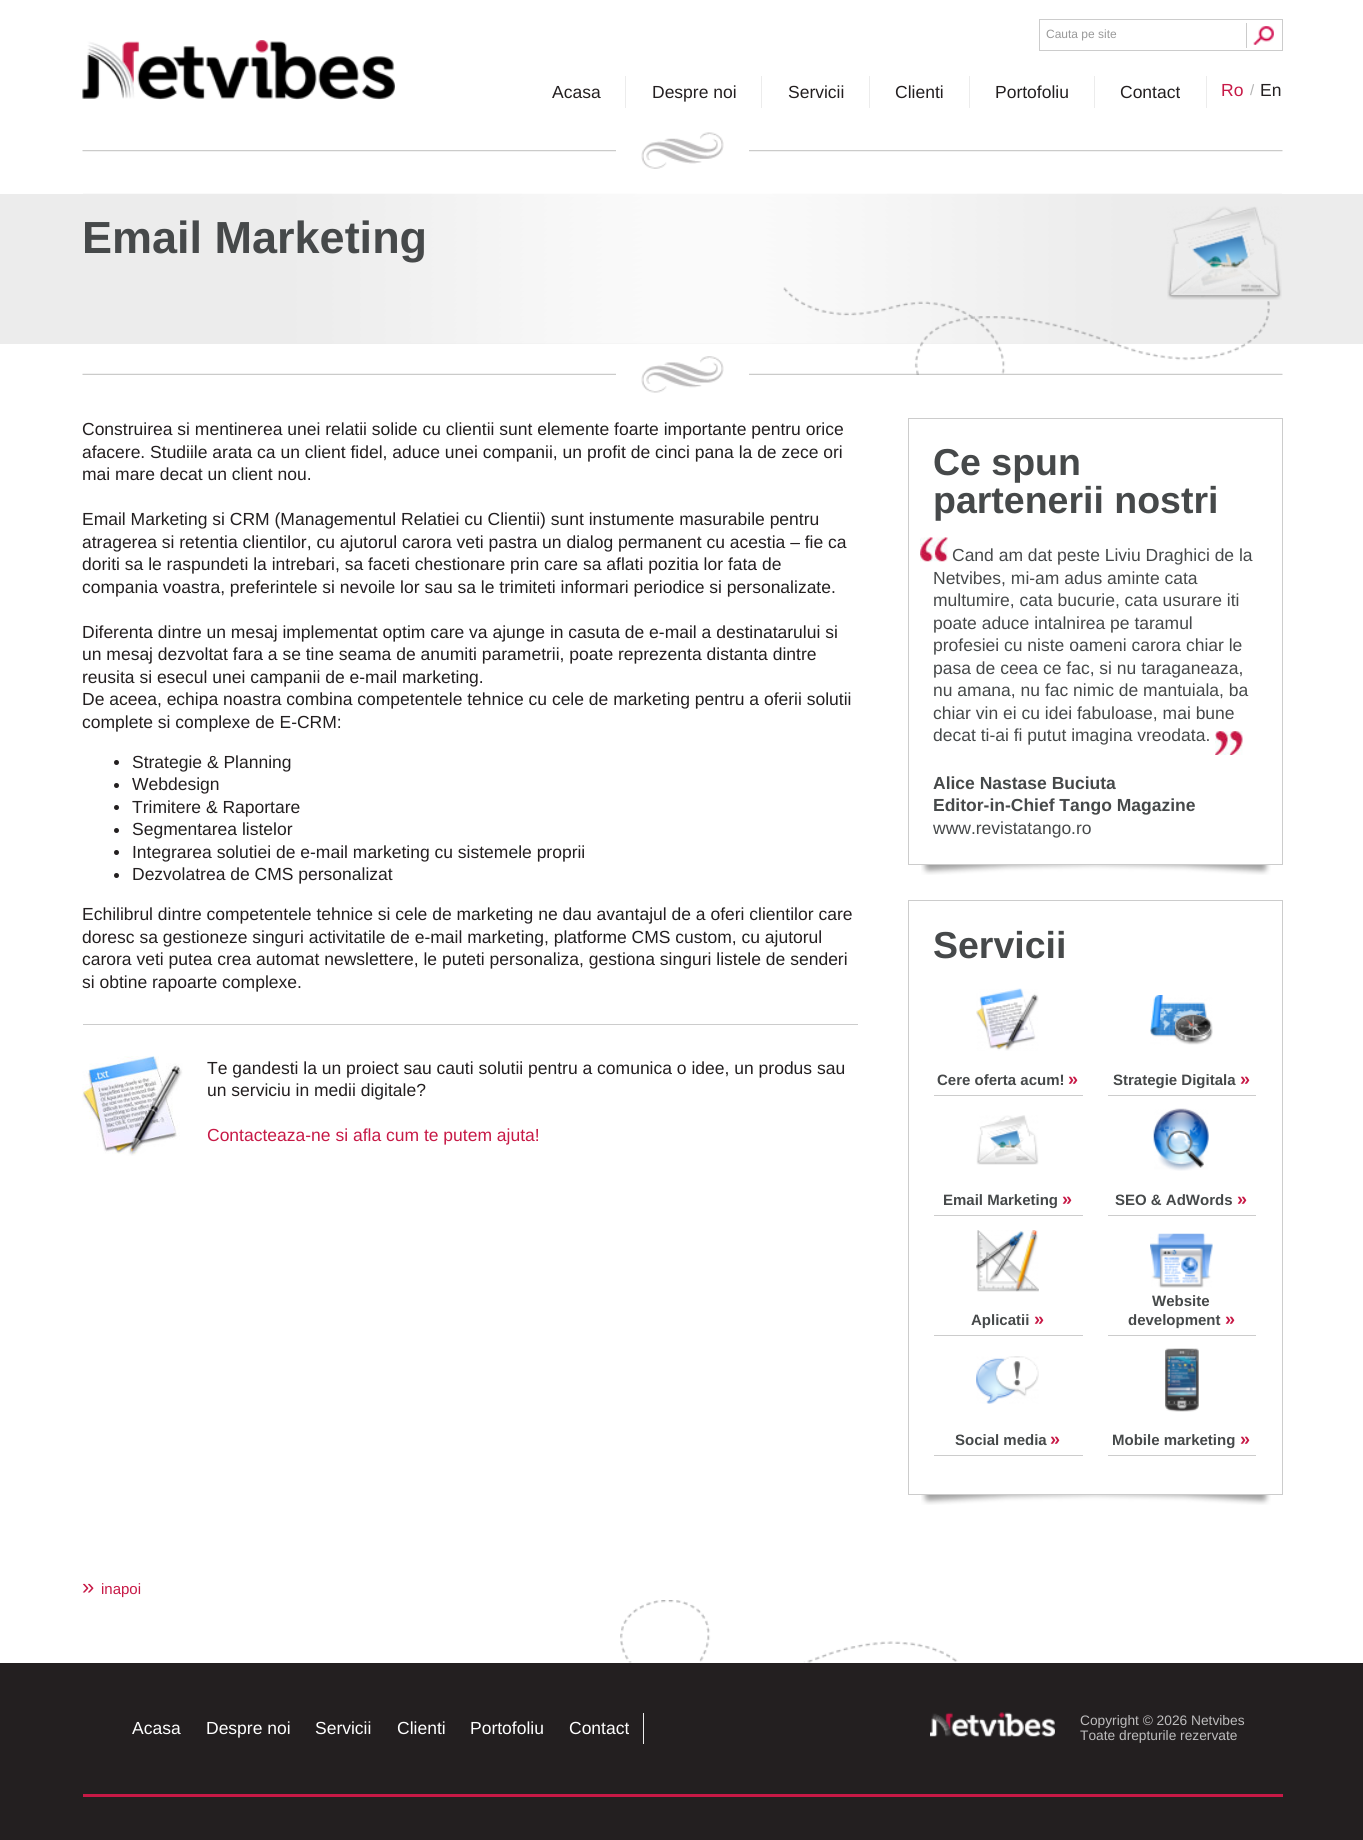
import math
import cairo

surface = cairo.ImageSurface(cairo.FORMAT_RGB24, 1363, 1840)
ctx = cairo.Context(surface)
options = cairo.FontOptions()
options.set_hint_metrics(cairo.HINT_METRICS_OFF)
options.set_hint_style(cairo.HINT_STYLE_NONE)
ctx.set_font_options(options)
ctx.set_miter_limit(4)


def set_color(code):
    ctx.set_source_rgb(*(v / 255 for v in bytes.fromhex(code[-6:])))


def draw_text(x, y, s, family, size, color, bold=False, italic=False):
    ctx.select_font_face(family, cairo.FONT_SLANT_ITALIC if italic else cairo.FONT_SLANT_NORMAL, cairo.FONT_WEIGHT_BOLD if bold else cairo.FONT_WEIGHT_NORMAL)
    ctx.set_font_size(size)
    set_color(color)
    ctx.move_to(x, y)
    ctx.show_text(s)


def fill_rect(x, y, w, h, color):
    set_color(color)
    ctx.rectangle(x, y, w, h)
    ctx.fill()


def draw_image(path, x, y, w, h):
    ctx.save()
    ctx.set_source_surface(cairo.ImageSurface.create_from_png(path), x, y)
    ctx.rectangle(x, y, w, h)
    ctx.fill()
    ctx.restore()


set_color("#ffffff")
ctx.paint()
draw_image("assets/img1.png", 82, 40, 313, 60)
ctx.rectangle(1039.5, 19.5, 243, 31)
set_color("#cccccc")
ctx.set_line_width(1)
ctx.stroke()
draw_text(1046, 38, "Cauta pe site", "Liberation Sans", 12, "#999999")
draw_image("assets/img2.png", 1253, 26, 21, 19)
fill_rect(1246, 23, 1, 25, "#cbcbcb")
draw_text(552, 98, "Acasa", "Liberation Sans", 17.5, "#231f20")
fill_rect(625, 76, 1, 32, "#ececec")
draw_text(652, 98, "Despre noi", "Liberation Sans", 17.5, "#231f20")
fill_rect(761, 76, 1, 32, "#ececec")
draw_text(788, 98, "Servicii", "Liberation Sans", 17.5, "#231f20")
fill_rect(869, 76, 1, 32, "#ececec")
draw_text(895, 98, "Clienti", "Liberation Sans", 17.5, "#231f20")
fill_rect(969, 76, 1, 32, "#ececec")
draw_text(995, 98, "Portofoliu", "Liberation Sans", 17.5, "#231f20")
fill_rect(1206, 76, 1, 32, "#ececec")
fill_rect(1094, 76, 1, 32, "#ececec")
draw_text(1120, 98, "Contact", "Liberation Sans", 17.5, "#231f20")
draw_text(1221, 96, "Ro", "Liberation Sans", 17.5, "#c71946")
draw_text(1250, 95, "/", "Liberation Sans", 15, "#b3b3b3")
draw_text(1260, 96, "En", "Liberation Sans", 17.5, "#231f20")
draw_image("assets/img3.png", 82, 150, 1201, 2)
fill_rect(616, 150, 133, 2, "#ffffff")
draw_image("assets/img4.png", 641, 132, 83, 37)
fill_rect(0, 194, 1363, 150, "#ececec")
draw_image("assets/img5.png", 83, 193, 1199, 151)
draw_text(82, 253, "Email Marketing", "Liberation Sans", 45, "#46494a", bold=True)
draw_image("assets/img6.png", 1167, 206, 115, 94)
draw_image("assets/img8.png", 82, 373, 1201, 2)
draw_image("assets/img7.png", 783, 287, 487, 88)
fill_rect(616, 373, 133, 2, "#ffffff")
draw_image("assets/img9.png", 641, 356, 83, 37)
draw_text(82, 435, "Construirea si mentinerea unei relatii solide cu clientii sunt elemente foarte importante pentru orice", "Liberation Sans", 17.5, "#231f20")
draw_text(82, 458, "afacere. Studiile arata ca un client fidel, aduce unei companii, un profit de cinci pana la de zece ori", "Liberation Sans", 17.5, "#231f20")
draw_text(82, 480, "mai mare decat un client nou.", "Liberation Sans", 17.5, "#231f20")
draw_text(82, 525, "Email Marketing si CRM (Managementul Relatiei cu Clientii) sunt instumente masurabile pentru", "Liberation Sans", 17.5, "#231f20")
draw_text(82, 548, "atragerea si retentia clientilor, cu ajutorul carora veti pastra un dialog permanent cu acestia – fie ca", "Liberation Sans", 17.5, "#231f20")
draw_text(82, 570, "doriti sa le raspundeti la intrebari, sa faceti chestionare prin care sa aflati pozitia lor fata de", "Liberation Sans", 17.5, "#231f20")
draw_text(82, 593, "compania voastra, preferintele si nevoile lor sau sa le trimiteti informari periodice si personalizate.", "Liberation Sans", 17.5, "#231f20")
draw_text(82, 638, "Diferenta dintre un mesaj implementat optim care va ajunge in casuta de e-mail a destinatarului si", "Liberation Sans", 17.5, "#231f20")
draw_text(82, 660, "un mesaj dezvoltat fara a se tine seama de anumiti parametrii, poate reprezenta distanta dintre", "Liberation Sans", 17.5, "#231f20")
draw_text(82, 683, "reusita si esecul unei campanii de e-mail marketing.", "Liberation Sans", 17.5, "#231f20")
draw_text(82, 705, "De aceea, echipa noastra combina competentele tehnice cu cele de marketing pentru a oferii solutii", "Liberation Sans", 17.5, "#231f20")
draw_text(82, 728, "complete si complexe de E-CRM:", "Liberation Sans", 17.5, "#231f20")
ctx.new_path()
ctx.arc(116.5, 762.5, 2.5, 0, 2 * math.pi)
ctx.fill()
draw_text(132, 768, "Strategie & Planning", "Liberation Sans", 17.5, "#231f20")
ctx.new_path()
ctx.arc(116.5, 785.5, 2.5, 0, 2 * math.pi)
ctx.fill()
draw_text(132, 790, "Webdesign", "Liberation Sans", 17.5, "#231f20")
ctx.new_path()
ctx.arc(116.5, 807.5, 2.5, 0, 2 * math.pi)
ctx.fill()
draw_text(132, 813, "Trimitere & Raportare", "Liberation Sans", 17.5, "#231f20")
ctx.new_path()
ctx.arc(116.5, 830.5, 2.5, 0, 2 * math.pi)
ctx.fill()
draw_text(132, 835, "Segmentarea listelor", "Liberation Sans", 17.5, "#231f20")
ctx.new_path()
ctx.arc(116.5, 852.5, 2.5, 0, 2 * math.pi)
ctx.fill()
draw_text(132, 858, "Integrarea solutiei de e-mail marketing cu sistemele proprii", "Liberation Sans", 17.5, "#231f20")
ctx.new_path()
ctx.arc(116.5, 875.5, 2.5, 0, 2 * math.pi)
ctx.fill()
draw_text(132, 880, "Dezvolatrea de CMS personalizat", "Liberation Sans", 17.5, "#231f20")
draw_text(82, 920, "Echilibrul dintre competentele tehnice si cele de marketing ne dau avantajul de a oferi clientilor care", "Liberation Sans", 17.5, "#231f20")
draw_text(82, 943, "doresc sa gestioneze singuri activitatile de e-mail marketing, platforme CMS custom, cu ajutorul", "Liberation Sans", 17.5, "#231f20")
draw_text(82, 965, "carora veti putea crea automat newslettere, le puteti personaliza, gestiona singuri listele de senderi", "Liberation Sans", 17.5, "#231f20")
draw_text(82, 988, "si obtine rapoarte complexe.", "Liberation Sans", 17.5, "#231f20")
fill_rect(83, 1024, 775, 1, "#cccccc")
draw_image("assets/img10.png", 82, 1056, 101, 100)
draw_text(207, 1074, "Te gandesti la un proiect sau cauti solutii pentru a comunica o idee, un produs sau", "Liberation Sans", 17.5, "#231f20")
draw_text(207, 1096, "un serviciu in medii digitale?", "Liberation Sans", 17.5, "#231f20")
draw_text(207, 1141, "Contacteaza-ne si afla cum te putem ajuta!", "Liberation Sans", 17.5, "#c71946")
ctx.rectangle(908.5, 418.5, 374, 446)
set_color("#cccccc")
ctx.stroke()
draw_text(933, 475, "Ce spun", "Liberation Sans", 37.5, "#46494a", bold=True)
draw_text(933, 513, "partenerii nostri", "Liberation Sans", 37.5, "#46494a", bold=True)
draw_image("assets/img11.png", 920, 537, 28, 25)
draw_text(952, 561, "Cand am dat peste Liviu Draghici de la", "Liberation Sans", 17.5, "#46494a")
draw_text(933, 584, "Netvibes, mi-am adus aminte cata", "Liberation Sans", 17.5, "#46494a")
draw_text(933, 606, "multumire, cata bucurie, cata usurare iti", "Liberation Sans", 17.5, "#46494a")
draw_text(933, 629, "poate aduce intalnirea pe taramul", "Liberation Sans", 17.5, "#46494a")
draw_text(933, 651, "profesiei cu niste oameni carora chiar le", "Liberation Sans", 17.5, "#46494a")
draw_text(933, 674, "pasa de ceea ce fac, si nu taraganeaza,", "Liberation Sans", 17.5, "#46494a")
draw_text(933, 696, "nu amana, nu fac nimic de mantuiala, ba", "Liberation Sans", 17.5, "#46494a")
draw_text(933, 719, "chiar vin ei cu idei fabuloase, mai bune", "Liberation Sans", 17.5, "#46494a")
draw_text(933, 741, "decat ti-ai fi putut imagina vreodata.", "Liberation Sans", 17.5, "#46494a")
draw_image("assets/img12.png", 1215, 731, 28, 24)
draw_text(933, 789, "Alice Nastase Buciuta", "Liberation Sans", 17.5, "#46494a", bold=True)
draw_text(933, 811, "Editor-in-Chief Tango Magazine", "Liberation Sans", 17.5, "#46494a", bold=True)
draw_text(933, 834, "www.revistatango.ro", "Liberation Sans", 17.5, "#46494a")
draw_image("assets/img13.png", 921, 865, 350, 10)
ctx.rectangle(908.5, 900.5, 374, 594)
set_color("#cccccc")
ctx.stroke()
draw_text(933, 958, "Servicii", "Liberation Sans", 37.5, "#46494a", bold=True)
fill_rect(934, 1095, 149, 1, "#cccccc")
draw_image("assets/img14.png", 976, 988, 63, 63)
draw_text(937, 1085, "Cere oferta acum!", "Liberation Sans", 15, "#46494a", bold=True)
draw_text(1068, 1085, "»", "Liberation Sans", 18, "#c71946", bold=True)
fill_rect(1108, 1095, 148, 1, "#cccccc")
draw_image("assets/img15.png", 1150, 995, 63, 50)
draw_text(1113, 1085, "Strategie Digitala", "Liberation Sans", 15, "#46494a", bold=True)
draw_text(1240, 1085, "»", "Liberation Sans", 18, "#c71946", bold=True)
fill_rect(934, 1215, 149, 1, "#cccccc")
draw_image("assets/img16.png", 976, 1115, 63, 50)
draw_text(943, 1205, "Email Marketing", "Liberation Sans", 15, "#46494a", bold=True)
draw_text(1062, 1205, "»", "Liberation Sans", 18, "#c71946", bold=True)
fill_rect(1108, 1215, 148, 1, "#cccccc")
draw_image("assets/img17.png", 1153, 1108, 56, 63)
draw_text(1115, 1205, "SEO & AdWords", "Liberation Sans", 15, "#46494a", bold=True)
draw_text(1237, 1205, "»", "Liberation Sans", 18, "#c71946", bold=True)
fill_rect(934, 1335, 149, 1, "#cccccc")
draw_image("assets/img18.png", 976, 1230, 63, 62)
draw_text(971, 1325, "Aplicatii", "Liberation Sans", 15, "#46494a", bold=True)
draw_text(1034, 1325, "»", "Liberation Sans", 18, "#c71946", bold=True)
fill_rect(1108, 1335, 148, 1, "#cccccc")
draw_image("assets/img19.png", 1150, 1233, 63, 55)
draw_text(1152, 1306, "Website", "Liberation Sans", 15, "#46494a", bold=True)
draw_text(1128, 1325, "development", "Liberation Sans", 15, "#46494a", bold=True)
draw_text(1225, 1325, "»", "Liberation Sans", 18, "#c71946", bold=True)
fill_rect(934, 1455, 149, 1, "#cccccc")
draw_image("assets/img20.png", 976, 1356, 63, 48)
draw_text(955, 1445, "Social media", "Liberation Sans", 15, "#46494a", bold=True)
draw_text(1050, 1445, "»", "Liberation Sans", 18, "#c71946", bold=True)
fill_rect(1108, 1455, 148, 1, "#cccccc")
draw_image("assets/img21.png", 1165, 1348, 34, 64)
draw_text(1112, 1445, "Mobile marketing", "Liberation Sans", 15, "#46494a", bold=True)
draw_text(1240, 1445, "»", "Liberation Sans", 18, "#c71946", bold=True)
draw_image("assets/img13.png", 921, 1495, 350, 10)
draw_text(82, 1594, "»", "Liberation Sans", 22, "#c71946")
draw_text(101, 1594, "inapoi", "Liberation Sans", 15, "#c71946")
draw_image("assets/img22.png", 620, 1600, 338, 63)
fill_rect(0, 1663, 1363, 177, "#231f20")
fill_rect(83, 1794, 1200, 3, "#c71946")
draw_text(132, 1734, "Acasa", "Liberation Sans", 17.5, "#ffffff")
draw_text(206, 1734, "Despre noi", "Liberation Sans", 17.5, "#ffffff")
draw_text(315, 1734, "Servicii", "Liberation Sans", 17.5, "#ffffff")
draw_text(397, 1734, "Clienti", "Liberation Sans", 17.5, "#ffffff")
draw_text(470, 1734, "Portofoliu", "Liberation Sans", 17.5, "#ffffff")
fill_rect(643, 1713, 1, 31, "#ececec")
draw_text(569, 1734, "Contact", "Liberation Sans", 17.5, "#ffffff")
draw_image("assets/img23.png", 930, 1712, 125, 25)
draw_text(1080, 1725, "Copyright © 2026 Netvibes", "Liberation Sans", 13.75, "#bdbcbd")
draw_text(1080, 1740, "Toate drepturile rezervate", "Liberation Sans", 13.75, "#bdbcbd")
surface.write_to_png("output.png")
